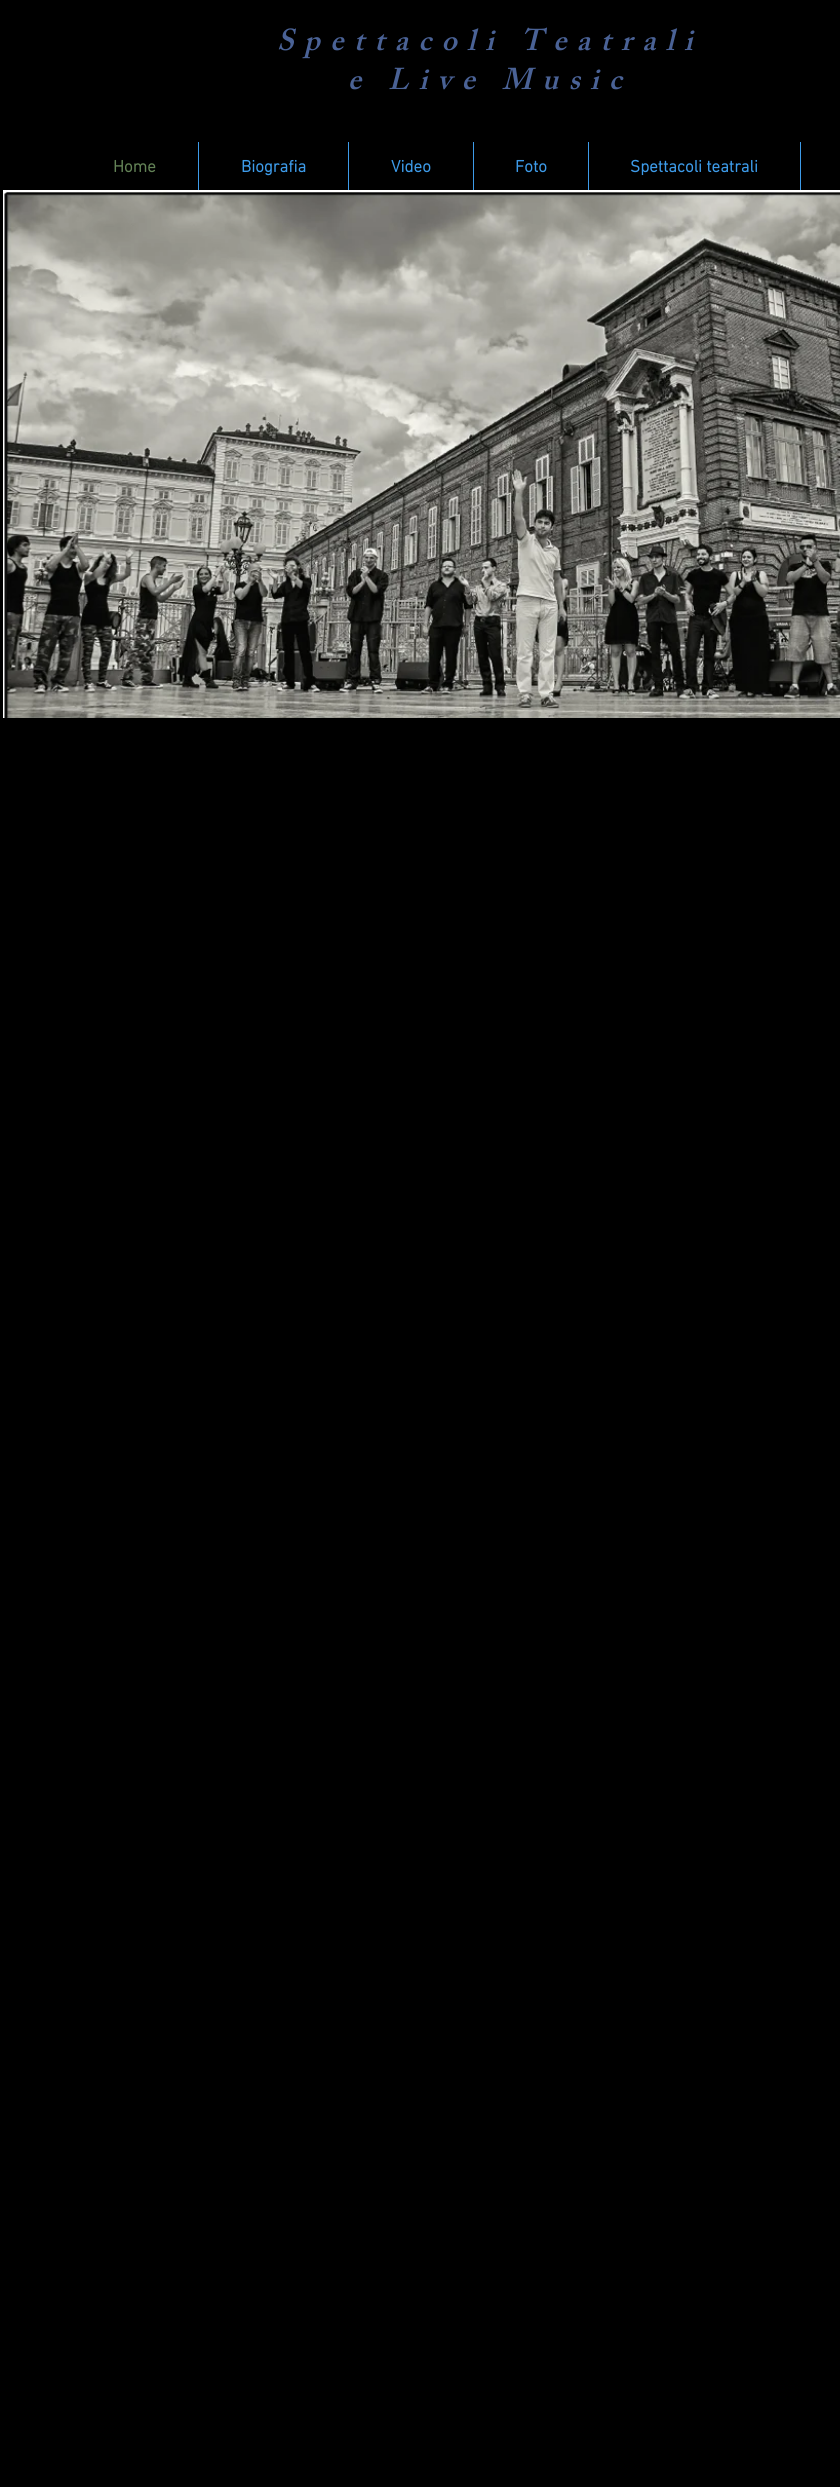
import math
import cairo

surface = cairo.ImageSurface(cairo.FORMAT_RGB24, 840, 2487)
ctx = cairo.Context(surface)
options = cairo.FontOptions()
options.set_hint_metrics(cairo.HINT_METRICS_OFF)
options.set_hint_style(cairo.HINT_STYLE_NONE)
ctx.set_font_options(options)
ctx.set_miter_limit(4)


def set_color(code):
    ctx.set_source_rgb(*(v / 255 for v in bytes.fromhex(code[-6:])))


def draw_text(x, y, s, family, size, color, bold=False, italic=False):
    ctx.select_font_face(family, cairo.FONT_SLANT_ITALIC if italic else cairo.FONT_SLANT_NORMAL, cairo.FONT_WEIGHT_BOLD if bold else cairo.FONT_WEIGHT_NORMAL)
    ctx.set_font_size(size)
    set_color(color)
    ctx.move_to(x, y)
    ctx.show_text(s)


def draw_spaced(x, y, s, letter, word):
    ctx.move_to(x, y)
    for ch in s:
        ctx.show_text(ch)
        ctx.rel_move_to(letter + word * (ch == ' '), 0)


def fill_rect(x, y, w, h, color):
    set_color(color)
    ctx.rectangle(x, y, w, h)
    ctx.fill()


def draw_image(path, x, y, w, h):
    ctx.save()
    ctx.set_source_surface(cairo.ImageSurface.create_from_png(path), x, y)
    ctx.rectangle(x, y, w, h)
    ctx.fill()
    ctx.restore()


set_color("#000000")
ctx.paint()
ctx.select_font_face("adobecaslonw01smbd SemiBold", cairo.FONT_SLANT_ITALIC)
ctx.set_font_size(30)
set_color("#4a6296")
draw_spaced(277, 50, "Spettacoli Teatrali", 10.5, 0)
draw_spaced(348, 89, "e Live Music", 10.5, 0)
draw_text(113, 172, "Home", "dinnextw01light", 17, "#638256", bold=True)
fill_rect(198, 142, 1, 53, "#3d9be9")
draw_text(241, 172, "Biografia", "dinnextw01light", 17, "#3d9be9", bold=True)
fill_rect(348, 142, 1, 53, "#3d9be9")
draw_text(391, 172, "Video", "dinnextw01light", 17, "#3d9be9", bold=True)
fill_rect(473, 142, 1, 53, "#3d9be9")
draw_text(515, 172, "Foto", "dinnextw01light", 17, "#3d9be9", bold=True)
fill_rect(588, 142, 1, 53, "#3d9be9")
draw_text(630, 172, "Spettacoli teatrali", "dinnextw01light", 17, "#3d9be9", bold=True)
fill_rect(800, 142, 1, 53, "#3d9be9")
draw_image("assets/img1.png", 3, 190, 837, 528)
surface.write_to_png("output.png")
